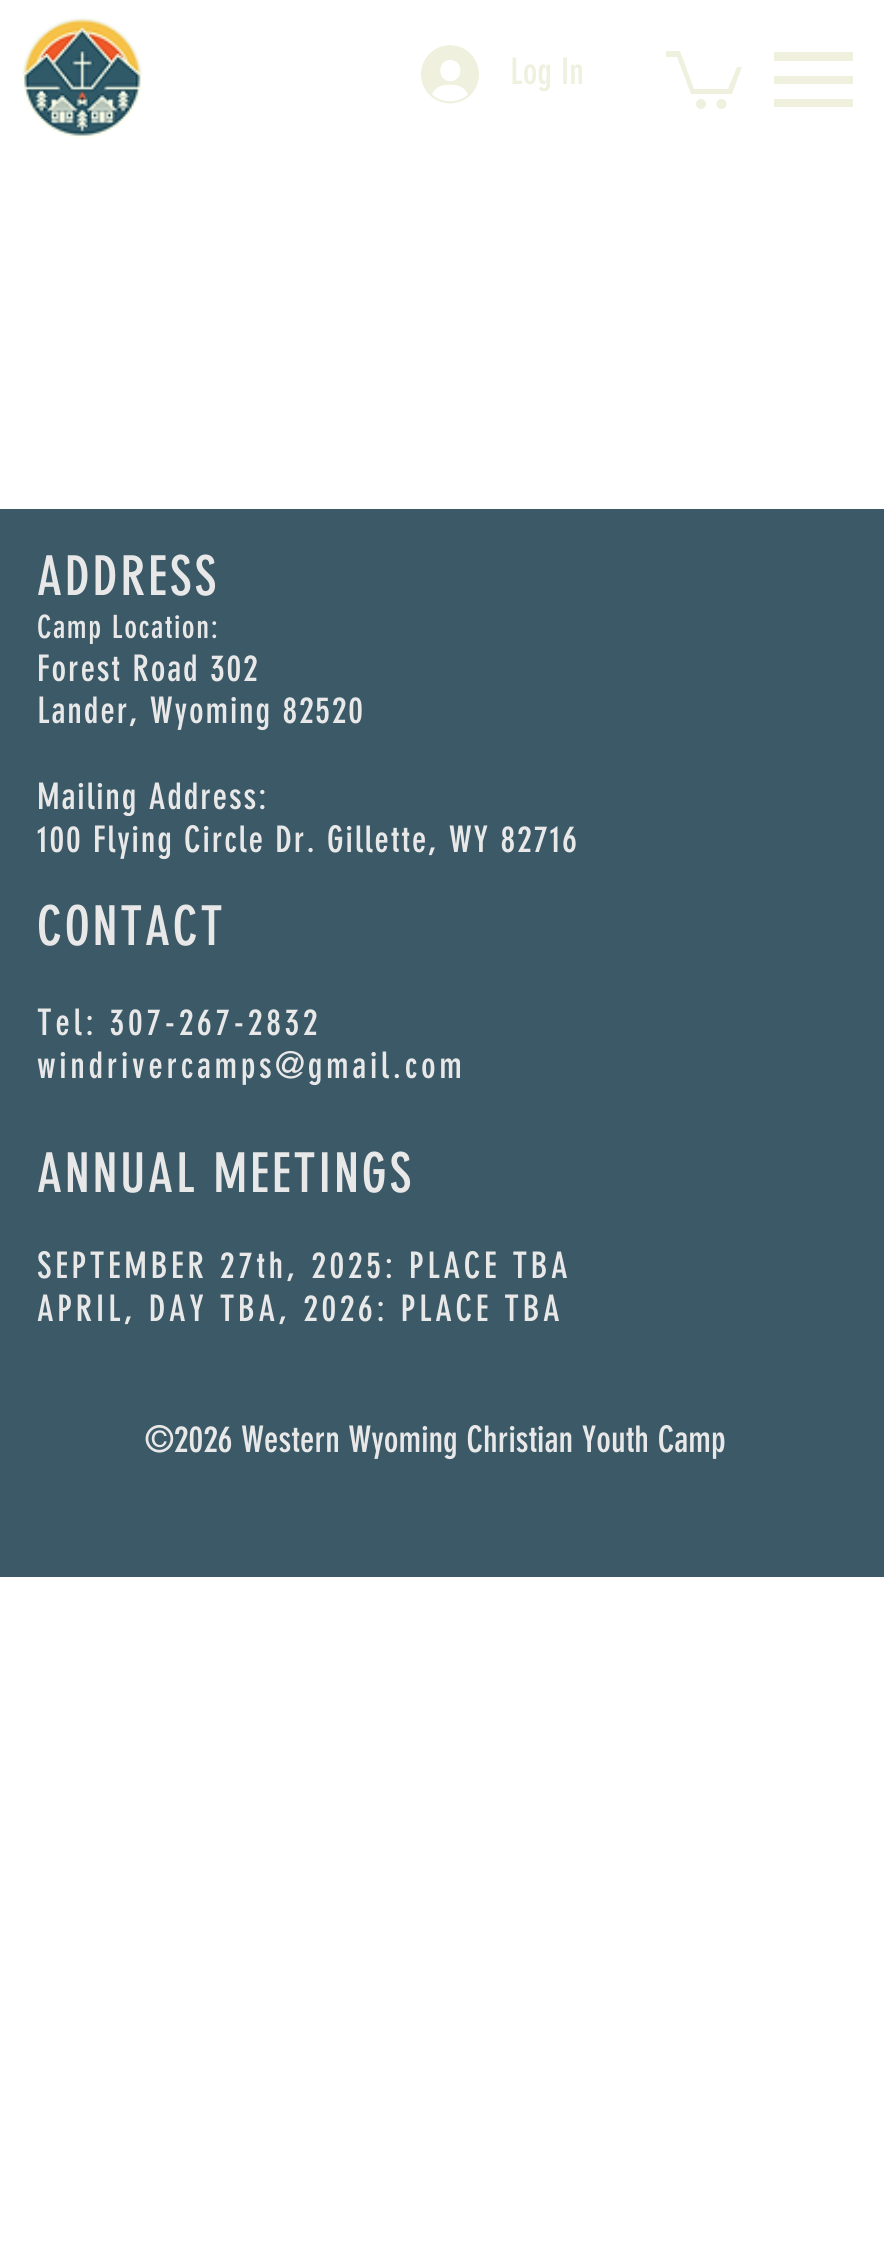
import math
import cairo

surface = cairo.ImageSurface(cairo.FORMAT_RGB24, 884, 2244)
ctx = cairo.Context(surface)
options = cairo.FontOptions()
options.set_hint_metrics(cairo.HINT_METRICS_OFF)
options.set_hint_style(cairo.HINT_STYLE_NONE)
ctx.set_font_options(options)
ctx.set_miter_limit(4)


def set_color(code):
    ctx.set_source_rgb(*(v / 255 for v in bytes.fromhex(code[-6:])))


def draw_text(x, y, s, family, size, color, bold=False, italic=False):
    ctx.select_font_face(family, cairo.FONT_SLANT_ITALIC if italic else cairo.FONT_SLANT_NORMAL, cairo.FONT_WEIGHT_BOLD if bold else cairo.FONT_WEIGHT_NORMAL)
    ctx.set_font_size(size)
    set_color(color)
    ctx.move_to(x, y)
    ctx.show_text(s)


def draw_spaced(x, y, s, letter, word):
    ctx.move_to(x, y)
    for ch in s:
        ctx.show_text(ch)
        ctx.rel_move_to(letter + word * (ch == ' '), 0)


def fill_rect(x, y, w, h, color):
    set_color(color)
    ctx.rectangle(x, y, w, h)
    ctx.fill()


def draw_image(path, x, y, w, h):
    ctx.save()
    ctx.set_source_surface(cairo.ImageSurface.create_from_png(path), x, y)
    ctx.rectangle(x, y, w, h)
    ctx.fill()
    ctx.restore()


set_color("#ffffff")
ctx.paint()
draw_image("assets/img1.png", 22, 17, 121, 121)
draw_image("assets/img2.png", 421, 45, 58, 59)
draw_text(510, 84, "Log In", "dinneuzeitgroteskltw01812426", 36, "#eff1de")
ctx.new_path()
ctx.move_to(742, 67)
ctx.line_to(732, 94)
ctx.line_to(691, 94)
ctx.line_to(677, 57)
ctx.line_to(666, 57)
ctx.line_to(666, 51)
ctx.line_to(680, 51)
ctx.line_to(694, 89)
ctx.line_to(728, 89)
ctx.line_to(737, 67)
ctx.fill()
ctx.arc(721.5, 104, 5, 0, 2 * math.pi)
ctx.fill()
ctx.arc(701, 104, 5, 0, 2 * math.pi)
ctx.fill()
fill_rect(774, 52, 79, 9, "#eff1de")
fill_rect(774, 76, 79, 8, "#eff1de")
fill_rect(774, 99, 79, 8, "#eff1de")
fill_rect(0, 509, 884, 1068, "#3b5967")
ctx.set_font_size(54)
set_color("#e8e8e8")
draw_spaced(37, 595, "ADDRESS", 2.75, 0)
ctx.set_font_size(31.5)
draw_spaced(37, 638, "Camp Location:", 1.5, 0)
ctx.set_font_size(36)
draw_spaced(37, 681, "Forest Road 302", 1.8, 0)
draw_spaced(37, 723, "Lander, Wyoming 82520", 1.8, 0)
draw_spaced(37, 809, "Mailing Address:", 1.8, 0)
draw_spaced(37, 852, "100 Flying Circle Dr. Gillette, WY 82716", 1.8, 0)
ctx.set_font_size(54)
draw_spaced(37, 945, "CONTACT", 2.75, 0)
ctx.set_font_size(36)
draw_spaced(37, 1035, "Tel: 307-267-2832", 3.6, 0)
draw_spaced(37, 1078, "windrivercamps@gmail.com", 3.6, 0)
ctx.set_font_size(54)
draw_spaced(37, 1192, "ANNUAL MEETINGS", 2.75, 0)
ctx.set_font_size(36)
draw_spaced(37, 1278, "SEPTEMBER 27th, 2025: PLACE TBA", 3.6, 0)
draw_spaced(37, 1321, "APRIL, DAY TBA, 2026: PLACE TBA", 3.6, 0)
draw_text(145, 1452, "©2026 Western Wyoming Christian Youth Camp", "dinneuzeitgroteskltw01812426", 36, "#e8e8e8")
surface.write_to_png("output.png")
